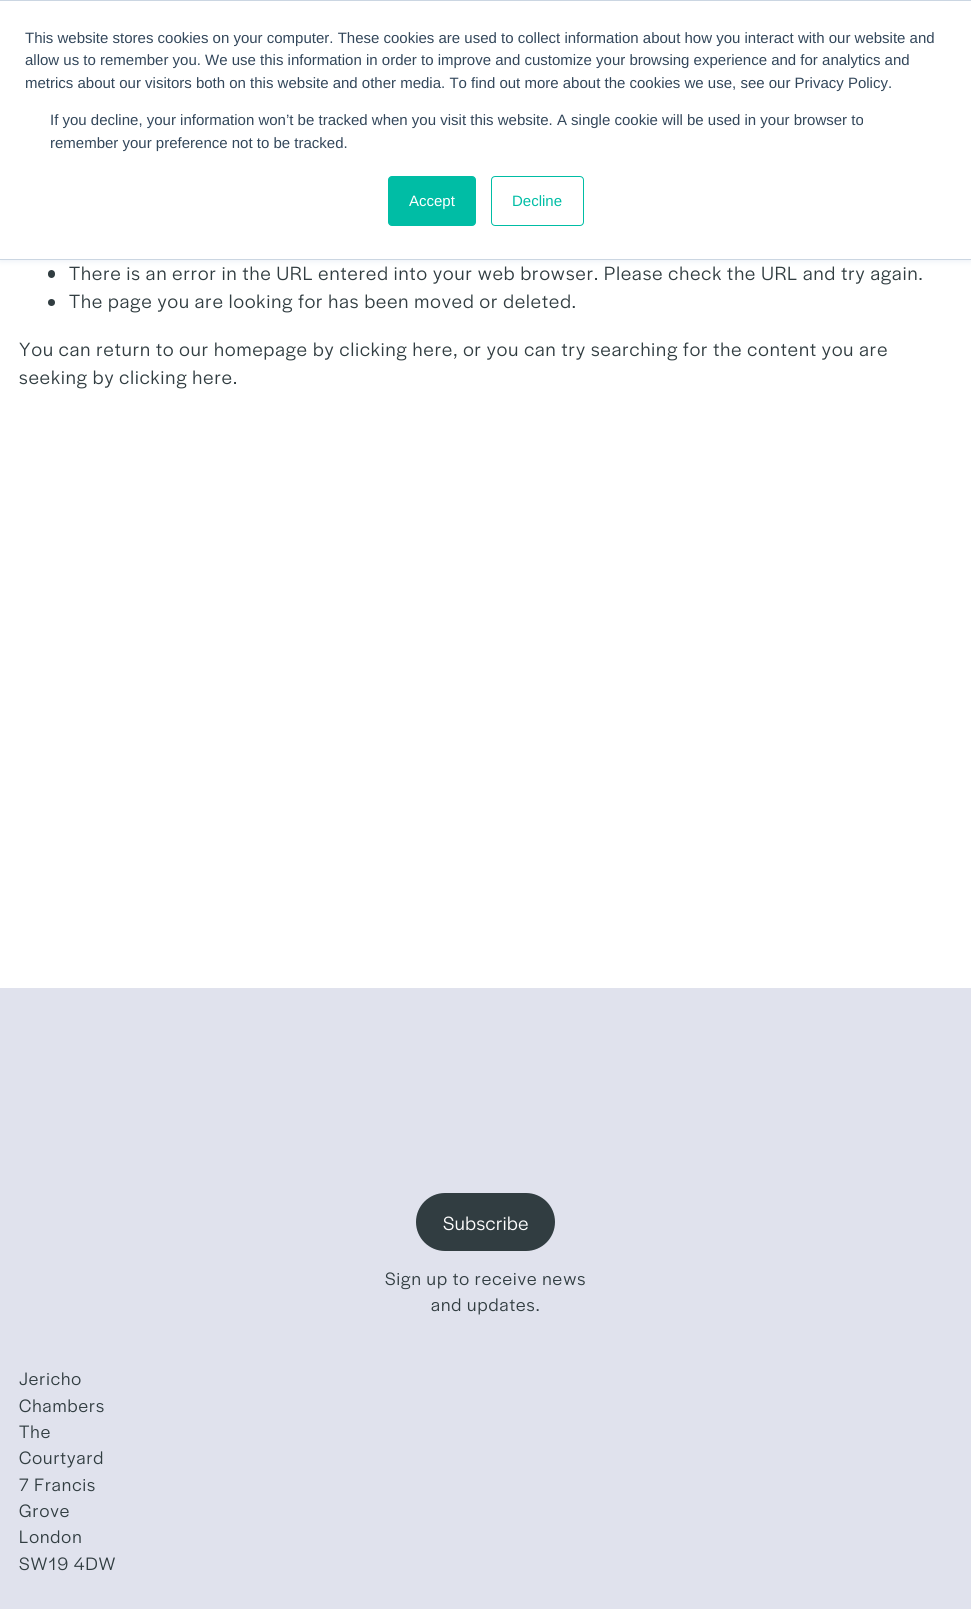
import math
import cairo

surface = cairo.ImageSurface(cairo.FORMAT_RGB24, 971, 1609)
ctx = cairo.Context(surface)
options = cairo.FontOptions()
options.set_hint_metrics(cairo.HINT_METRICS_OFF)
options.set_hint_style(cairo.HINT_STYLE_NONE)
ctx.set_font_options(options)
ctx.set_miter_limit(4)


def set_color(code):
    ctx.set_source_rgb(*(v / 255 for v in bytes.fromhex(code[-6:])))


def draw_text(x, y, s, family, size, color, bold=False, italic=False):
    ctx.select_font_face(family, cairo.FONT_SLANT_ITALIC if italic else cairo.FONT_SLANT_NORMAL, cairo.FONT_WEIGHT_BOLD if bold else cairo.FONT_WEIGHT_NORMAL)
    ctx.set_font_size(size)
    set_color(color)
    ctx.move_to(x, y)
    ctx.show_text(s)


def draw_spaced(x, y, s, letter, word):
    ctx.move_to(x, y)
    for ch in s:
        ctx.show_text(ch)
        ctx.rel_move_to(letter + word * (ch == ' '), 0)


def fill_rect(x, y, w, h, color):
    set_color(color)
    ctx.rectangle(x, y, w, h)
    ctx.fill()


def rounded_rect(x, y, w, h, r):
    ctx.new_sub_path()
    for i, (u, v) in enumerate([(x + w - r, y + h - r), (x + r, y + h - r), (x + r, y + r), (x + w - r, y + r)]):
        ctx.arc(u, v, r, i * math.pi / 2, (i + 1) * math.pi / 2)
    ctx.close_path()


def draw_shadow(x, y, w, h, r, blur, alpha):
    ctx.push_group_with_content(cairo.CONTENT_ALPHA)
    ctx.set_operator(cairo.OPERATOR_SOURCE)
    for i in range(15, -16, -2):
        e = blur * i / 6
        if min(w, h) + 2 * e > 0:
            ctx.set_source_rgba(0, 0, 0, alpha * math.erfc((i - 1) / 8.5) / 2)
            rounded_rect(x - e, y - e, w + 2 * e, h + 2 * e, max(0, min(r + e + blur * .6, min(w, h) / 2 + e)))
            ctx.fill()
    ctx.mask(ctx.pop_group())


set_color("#ffffff")
ctx.paint()
set_color("#313d41")
rounded_rect(48, 270, 7, 8, 3.5)
ctx.fill()
set_color("#eaf0f6")
draw_shadow(0, 1, 971, 260, 0, 3, 1)
fill_rect(0, 1, 971, 258, "#ffffff")
fill_rect(0, 0, 971, 1, "#cbd6e2")
fill_rect(0, 259, 971, 1, "#cbd6e2")
draw_text(25, 43, "This website stores cookies on your computer. These cookies are used to collect information about how you interact with our website and", "Liberation Sans", 15, "#33475b")
draw_text(25, 65, "allow us to remember you. We use this information in order to improve and customize your browsing experience and for analytics and", "Liberation Sans", 15, "#33475b")
draw_text(25, 88, "metrics about our visitors both on this website and other media. To find out more about the cookies we use, see our Privacy Policy.", "Liberation Sans", 15, "#33475b")
draw_text(50, 125, "If you decline, your information won’t be tracked when you visit this website. A single cookie will be used in your browser to", "Liberation Sans", 15, "#33475b")
draw_text(50, 148, "remember your preference not to be tracked.", "Liberation Sans", 15, "#33475b")
set_color("#00bda5")
rounded_rect(388.5, 176.5, 87, 49, 3.5)
ctx.fill_preserve()
ctx.set_line_width(1)
ctx.stroke()
draw_text(409, 206, "Accept", "Liberation Sans", 15, "#ffffff")
rounded_rect(491.5, 176.5, 92, 49, 3.5)
set_color("#00bda5")
ctx.stroke()
draw_text(512, 206, "Decline", "Liberation Sans", 15, "#00bda5")
ctx.select_font_face("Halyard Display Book")
ctx.set_font_size(20)
set_color("#313d41")
draw_spaced(69, 280, "There is an error in the URL entered into your web browser. Please check the URL and try again.", 1, 0)
ctx.new_path()
ctx.arc(51.5, 302.5, 3.5, 0, 2 * math.pi)
ctx.fill()
draw_spaced(69, 308, "The page you are looking for has been moved or deleted.", 1, 0)
draw_spaced(19, 356, "You can return to our homepage by clicking here, or you can try searching for the content you are", 1, 0)
draw_spaced(19, 384, "seeking by clicking here.", 1, 0)
fill_rect(0, 988, 971, 621, "#e0e2ed")
set_color("#313d41")
rounded_rect(416, 1193, 139, 58, 29)
ctx.fill()
set_color("#ffffff")
draw_spaced(443, 1230, "Subscribe", 0.5, 0)
ctx.set_font_size(18.75)
set_color("#313d41")
draw_spaced(385, 1285, "Sign up to receive news", 1, 0)
draw_spaced(431, 1311, "and updates.", 1, 0)
draw_spaced(19, 1385, "Jericho", 1, 0)
draw_spaced(19, 1412, "Chambers", 1, 0)
draw_spaced(19, 1438, "The", 1, 0)
draw_spaced(19, 1464, "Courtyard", 1, 0)
draw_spaced(19, 1491, "7 Francis", 1, 0)
draw_spaced(19, 1517, "Grove", 1, 0)
draw_spaced(19, 1543, "London", 1, 0)
draw_spaced(19, 1570, "SW19 4DW", 1, 0)
surface.write_to_png("output.png")
